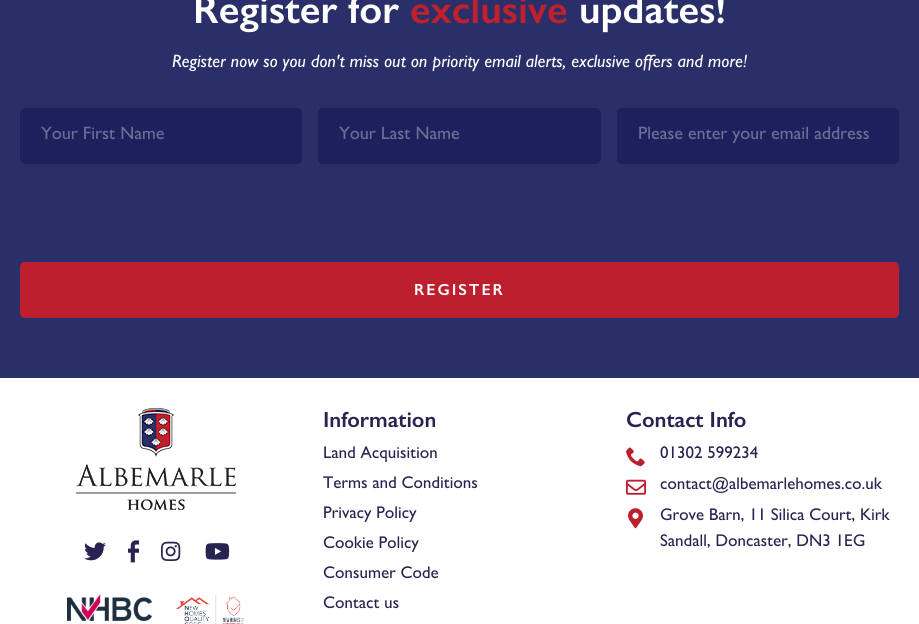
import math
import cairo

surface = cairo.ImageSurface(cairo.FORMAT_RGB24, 919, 624)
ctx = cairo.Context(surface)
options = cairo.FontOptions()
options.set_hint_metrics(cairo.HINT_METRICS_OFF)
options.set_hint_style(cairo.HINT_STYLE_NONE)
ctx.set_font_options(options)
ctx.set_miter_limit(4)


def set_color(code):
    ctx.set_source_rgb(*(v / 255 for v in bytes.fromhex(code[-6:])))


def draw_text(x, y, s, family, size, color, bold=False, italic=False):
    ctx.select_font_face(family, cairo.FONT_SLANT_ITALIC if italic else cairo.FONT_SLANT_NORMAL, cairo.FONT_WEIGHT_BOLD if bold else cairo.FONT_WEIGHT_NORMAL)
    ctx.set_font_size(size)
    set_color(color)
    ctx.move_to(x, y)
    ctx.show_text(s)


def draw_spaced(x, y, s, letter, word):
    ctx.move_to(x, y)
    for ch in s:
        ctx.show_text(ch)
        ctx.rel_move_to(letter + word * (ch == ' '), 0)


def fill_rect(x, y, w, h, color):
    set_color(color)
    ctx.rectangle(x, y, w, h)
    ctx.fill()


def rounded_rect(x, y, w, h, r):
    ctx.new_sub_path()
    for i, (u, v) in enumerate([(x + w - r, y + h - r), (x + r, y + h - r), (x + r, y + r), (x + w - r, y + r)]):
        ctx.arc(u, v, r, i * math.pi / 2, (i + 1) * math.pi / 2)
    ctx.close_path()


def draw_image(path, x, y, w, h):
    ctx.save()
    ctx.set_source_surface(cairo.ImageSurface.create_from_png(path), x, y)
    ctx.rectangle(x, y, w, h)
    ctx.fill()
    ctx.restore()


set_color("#ffffff")
ctx.paint()
fill_rect(0, 0, 919, 378, "#2a2f69")
draw_text(193, 23, "Register for", "Gill Sans SemiBold", 40, "#ffffff")
draw_text(410, 23, "exclusive", "Gill Sans SemiBold", 40, "#be202e")
draw_text(579, 23, "updates!", "Gill Sans SemiBold", 40, "#ffffff")
draw_image("assets/img1.png", 172, 54, 575, 18)
set_color("#1c215d")
rounded_rect(20, 108, 282, 56, 5)
ctx.fill()
draw_image("assets/img2.png", 41, 126, 123, 14)
rounded_rect(318, 108, 283, 56, 5)
ctx.fill()
draw_image("assets/img3.png", 339, 126, 120, 14)
rounded_rect(617, 108, 282, 56, 5)
ctx.fill()
draw_image("assets/img4.png", 639, 126, 230, 18)
set_color("#be1f2e")
rounded_rect(20, 262, 879, 56, 5)
ctx.fill()
ctx.set_font_size(16)
set_color("#ffffff")
draw_spaced(414, 295, "REGISTER", 2, 0)
draw_image("assets/img5.png", 76, 408, 160, 102)
draw_image("assets/img6.png", 84, 542, 22, 19)
draw_image("assets/img7.png", 128, 540, 11, 23)
draw_image("assets/img8.png", 161, 541, 20, 20)
draw_image("assets/img9.png", 205, 543, 25, 17)
draw_image("assets/img10.png", 67, 594, 85, 27)
draw_image("assets/img11.png", 176, 594, 68, 30)
draw_text(323, 427, "Information", "Gill Sans SemiBold", 22, "#282350")
draw_image("assets/img12.png", 324, 446, 113, 16)
draw_image("assets/img13.png", 323, 476, 155, 13)
draw_image("assets/img14.png", 324, 506, 93, 16)
draw_image("assets/img15.png", 323, 536, 96, 16)
draw_image("assets/img16.png", 323, 566, 116, 13)
draw_image("assets/img17.png", 323, 596, 76, 13)
draw_text(626, 427, "Contact Info", "Gill Sans SemiBold", 22, "#282350")
draw_image("assets/img18.png", 626, 447, 19, 20)
draw_image("assets/img19.png", 660, 446, 98, 13)
draw_image("assets/img20.png", 626, 479, 20, 16)
draw_image("assets/img21.png", 660, 477, 223, 16)
draw_image("assets/img22.png", 628, 508, 15, 21)
draw_image("assets/img23.png", 660, 508, 230, 14)
draw_image("assets/img24.png", 660, 534, 205, 14)
surface.write_to_png("output.png")
